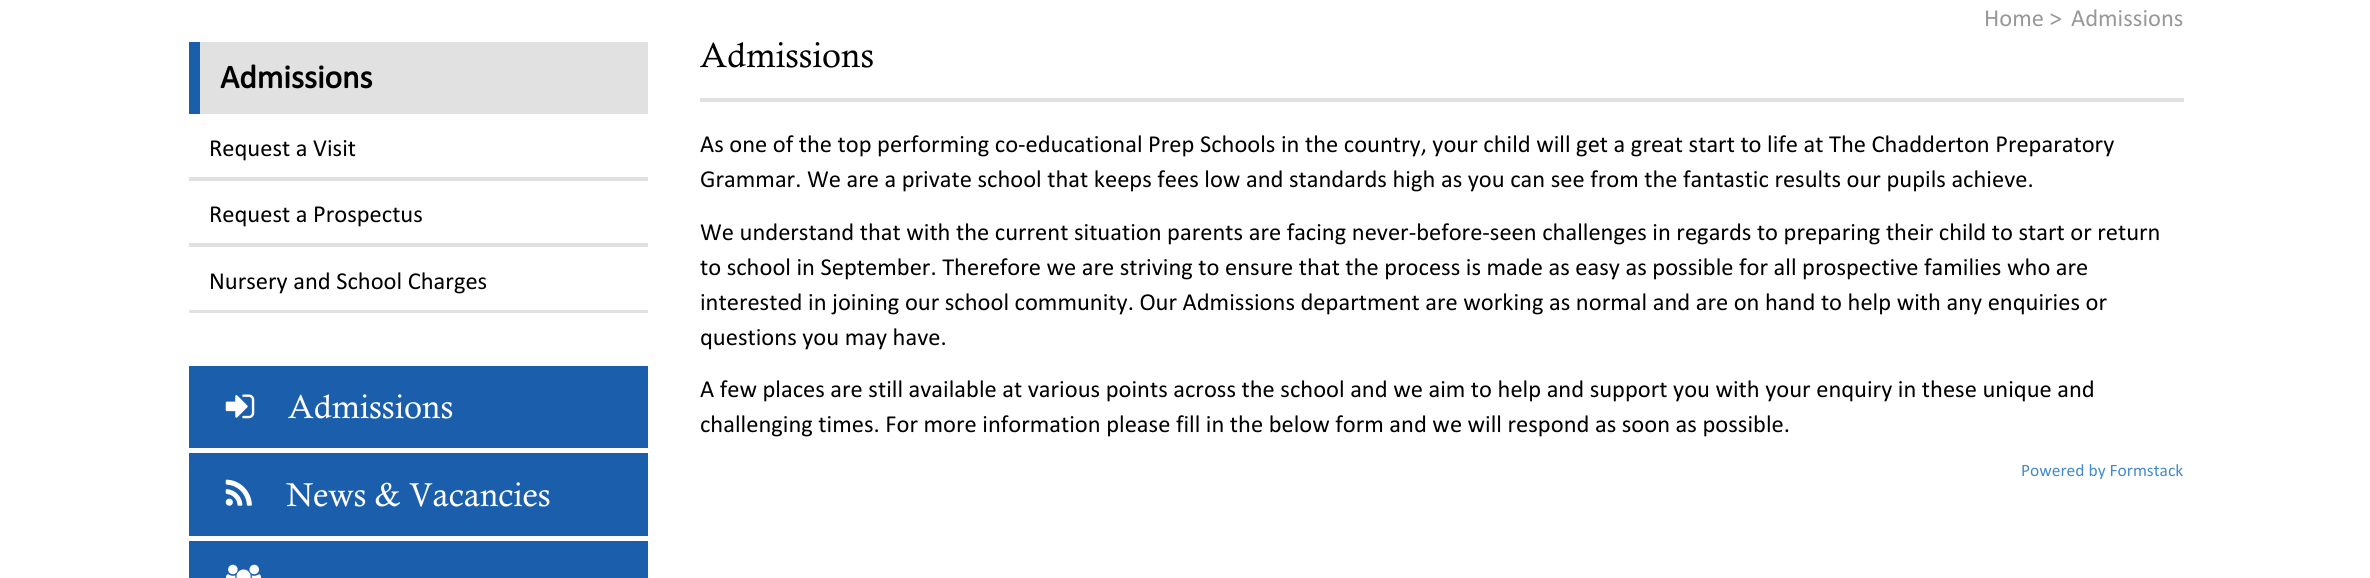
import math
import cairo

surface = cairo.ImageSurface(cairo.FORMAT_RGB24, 2370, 578)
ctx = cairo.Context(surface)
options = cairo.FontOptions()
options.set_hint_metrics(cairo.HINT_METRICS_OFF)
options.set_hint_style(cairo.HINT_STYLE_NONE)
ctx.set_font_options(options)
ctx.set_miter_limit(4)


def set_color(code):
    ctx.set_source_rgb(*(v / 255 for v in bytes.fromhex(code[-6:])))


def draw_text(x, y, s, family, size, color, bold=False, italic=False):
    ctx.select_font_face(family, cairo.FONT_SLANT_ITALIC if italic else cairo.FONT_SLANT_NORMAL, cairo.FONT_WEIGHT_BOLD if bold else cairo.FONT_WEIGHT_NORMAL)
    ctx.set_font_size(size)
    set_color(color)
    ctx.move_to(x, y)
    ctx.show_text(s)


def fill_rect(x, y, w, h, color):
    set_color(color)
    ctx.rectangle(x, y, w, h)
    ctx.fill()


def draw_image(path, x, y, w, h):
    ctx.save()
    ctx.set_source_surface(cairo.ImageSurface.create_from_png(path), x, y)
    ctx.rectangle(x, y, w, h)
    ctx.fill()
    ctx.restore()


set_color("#ffffff")
ctx.paint()
fill_rect(200, 42, 448, 72, "#e1e1e1")
fill_rect(189, 42, 11, 72, "#1b5fac")
draw_text(220, 88, "Admissions", "Calibri", 33.25, "#000000", bold=True)
fill_rect(189, 177, 459, 4, "#e1e1e1")
draw_text(209, 156, "Request a Visit", "Calibri", 24.5, "#000000")
fill_rect(189, 243, 459, 4, "#e1e1e1")
draw_text(209, 222, "Request a Prospectus", "Calibri", 24.5, "#000000")
fill_rect(189, 310, 459, 3, "#e1e1e1")
draw_text(209, 289, "Nursery and School Charges", "Calibri", 24.5, "#000000")
fill_rect(189, 366, 459, 82, "#1b5fac")
draw_image("assets/img1.png", 225, 394, 30, 25)
draw_text(288, 418, "Admissions", "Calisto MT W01", 33.25, "#ffffff")
fill_rect(189, 453, 459, 83, "#1b5fac")
draw_image("assets/img2.png", 225, 479, 27, 27)
draw_text(286, 506, "News & Vacancies", "Calisto MT W01", 33.25, "#ffffff")
fill_rect(189, 541, 459, 37, "#1b5fac")
draw_image("assets/img3.png", 225, 564, 37, 14)
draw_text(1984, 26, "Home >", "Calibri", 24.5, "#989898")
draw_text(2071, 26, "Admissions", "Calibri", 24.5, "#989898")
fill_rect(700, 98, 1484, 4, "#e1e1e1")
draw_text(700, 67, "Admissions", "Calisto MT W01", 35, "#000000")
draw_text(700, 152, "As one of the top performing co-educational Prep Schools in the country, your child will get a great start to life at The Chadderton Preparatory", "Calibri", 24.5, "#000000")
draw_text(700, 187, "Grammar. We are a private school that keeps fees low and standards high as you can see from the fantastic results our pupils achieve.", "Calibri", 24.5, "#000000")
draw_text(700, 240, "We understand that with the current situation parents are facing never-before-seen challenges in regards to preparing their child to start or return", "Calibri", 24.5, "#000000")
draw_text(700, 275, "to school in September. Therefore we are striving to ensure that the process is made as easy as possible for all prospective families who are", "Calibri", 24.5, "#000000")
draw_text(700, 310, "interested in joining our school community. Our Admissions department are working as normal and are on hand to help with any enquiries or", "Calibri", 24.5, "#000000")
draw_text(700, 345, "questions you may have.", "Calibri", 24.5, "#000000")
draw_text(700, 397, "A few places are still available at various points across the school and we aim to help and support you with your enquiry in these unique and", "Calibri", 24.5, "#000000")
draw_text(700, 432, "challenging times. For more information please fill in the below form and we will respond as soon as possible.", "Calibri", 24.5, "#000000")
draw_text(2021, 476, "Powered by Formstack", "Calibri", 17.5, "#428bca")
surface.write_to_png("output.png")
